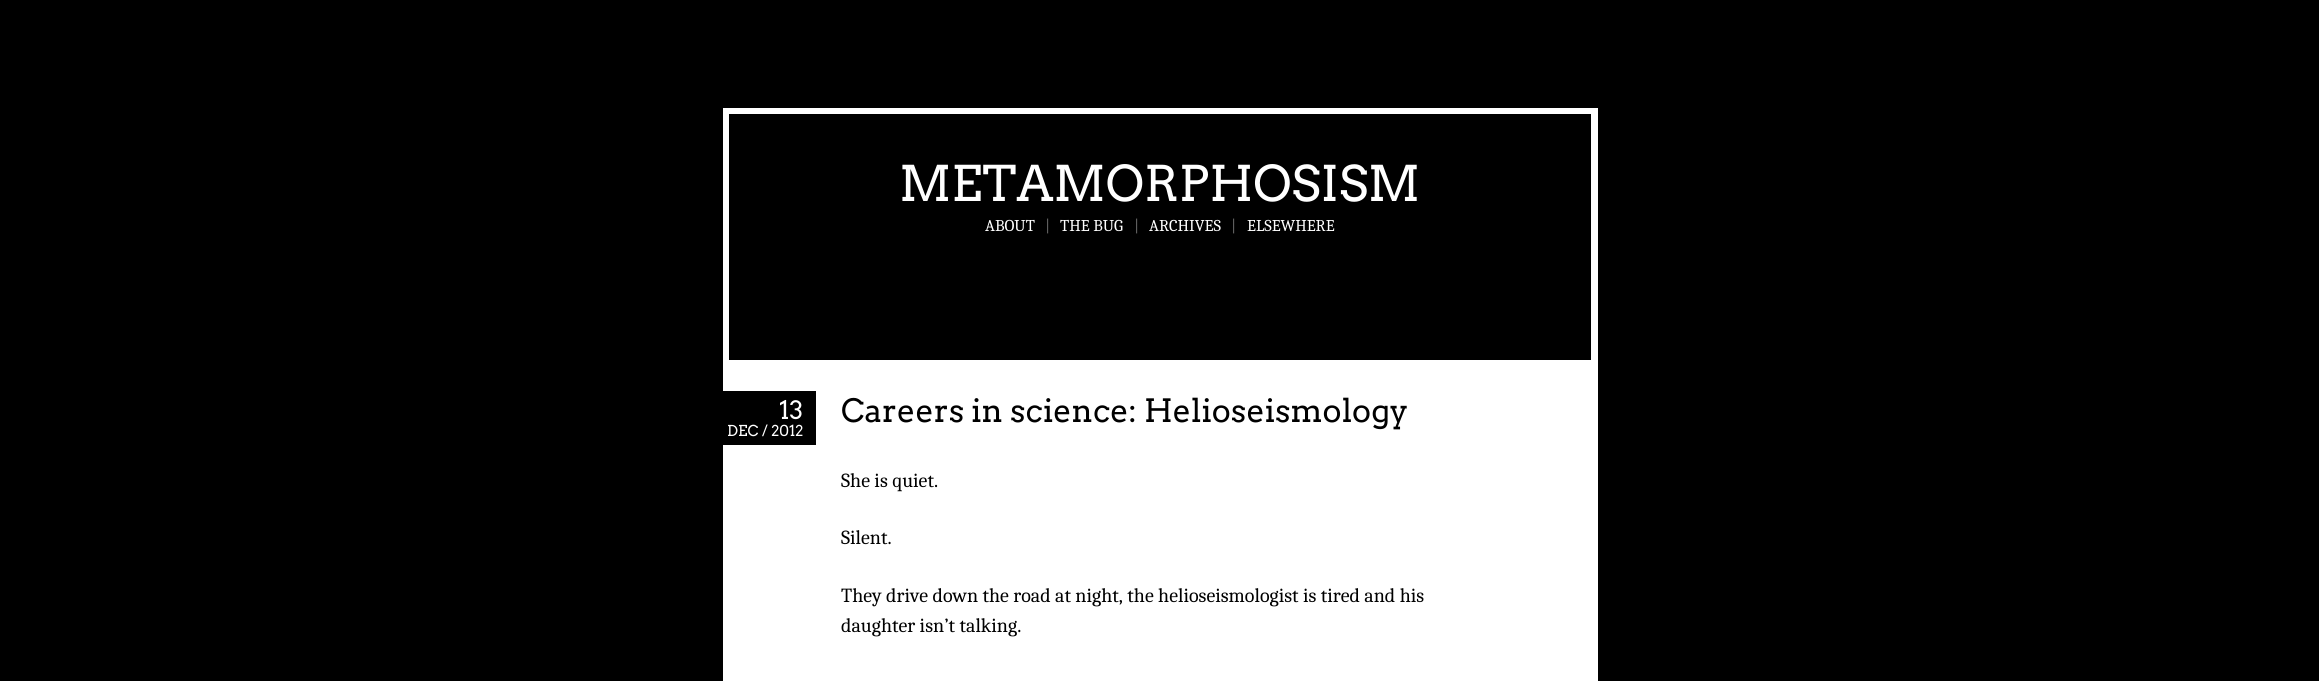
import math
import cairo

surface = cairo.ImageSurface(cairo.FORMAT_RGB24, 2319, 681)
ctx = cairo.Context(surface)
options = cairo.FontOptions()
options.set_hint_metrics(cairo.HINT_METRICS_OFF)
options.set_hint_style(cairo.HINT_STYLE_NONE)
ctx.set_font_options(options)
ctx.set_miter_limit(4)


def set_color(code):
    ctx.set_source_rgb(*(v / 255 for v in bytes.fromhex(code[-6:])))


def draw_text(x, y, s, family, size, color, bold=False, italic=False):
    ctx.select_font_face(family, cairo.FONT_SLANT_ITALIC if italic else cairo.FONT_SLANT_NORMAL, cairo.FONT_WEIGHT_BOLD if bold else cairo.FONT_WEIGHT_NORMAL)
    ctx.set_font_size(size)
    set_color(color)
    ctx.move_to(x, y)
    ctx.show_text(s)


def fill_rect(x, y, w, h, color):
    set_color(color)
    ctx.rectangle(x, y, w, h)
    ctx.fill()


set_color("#000000")
ctx.paint()
fill_rect(723, 108, 875, 573, "#ffffff")
fill_rect(729, 114, 862, 246, "#000000")
draw_text(899, 201, "METAMORPHOSISM", "Arvo", 49, "#ffffff")
draw_text(985, 231, "ABOUT", "Caladea", 16.5, "#ffffff")
draw_text(1045, 231, "|", "Caladea", 16.5, "#666666")
draw_text(1060, 231, "THE BUG", "Caladea", 16.5, "#ffffff")
draw_text(1134, 231, "|", "Caladea", 16.5, "#666666")
draw_text(1149, 231, "ARCHIVES", "Caladea", 16.5, "#ffffff")
draw_text(1231, 231, "|", "Caladea", 16.5, "#666666")
draw_text(1247, 231, "ELSEWHERE", "Caladea", 16.5, "#ffffff")
fill_rect(723, 391, 93, 54, "#000000")
draw_text(779, 419, "13", "Arvo", 25, "#ffffff")
draw_text(727, 436, "DEC / 2012", "Arvo", 15, "#ffffff")
draw_text(841, 422, "Careers in science: Helioseismology", "Arvo", 32, "#000000")
draw_text(841, 487, "She is quiet.", "Caladea", 20, "#000000")
draw_text(841, 544, "Silent.", "Caladea", 20, "#000000")
draw_text(841, 602, "They drive down the road at night, the helioseismologist is tired and his", "Caladea", 20, "#000000")
draw_text(841, 632, "daughter isn’t talking.", "Caladea", 20, "#000000")
surface.write_to_png("output.png")
